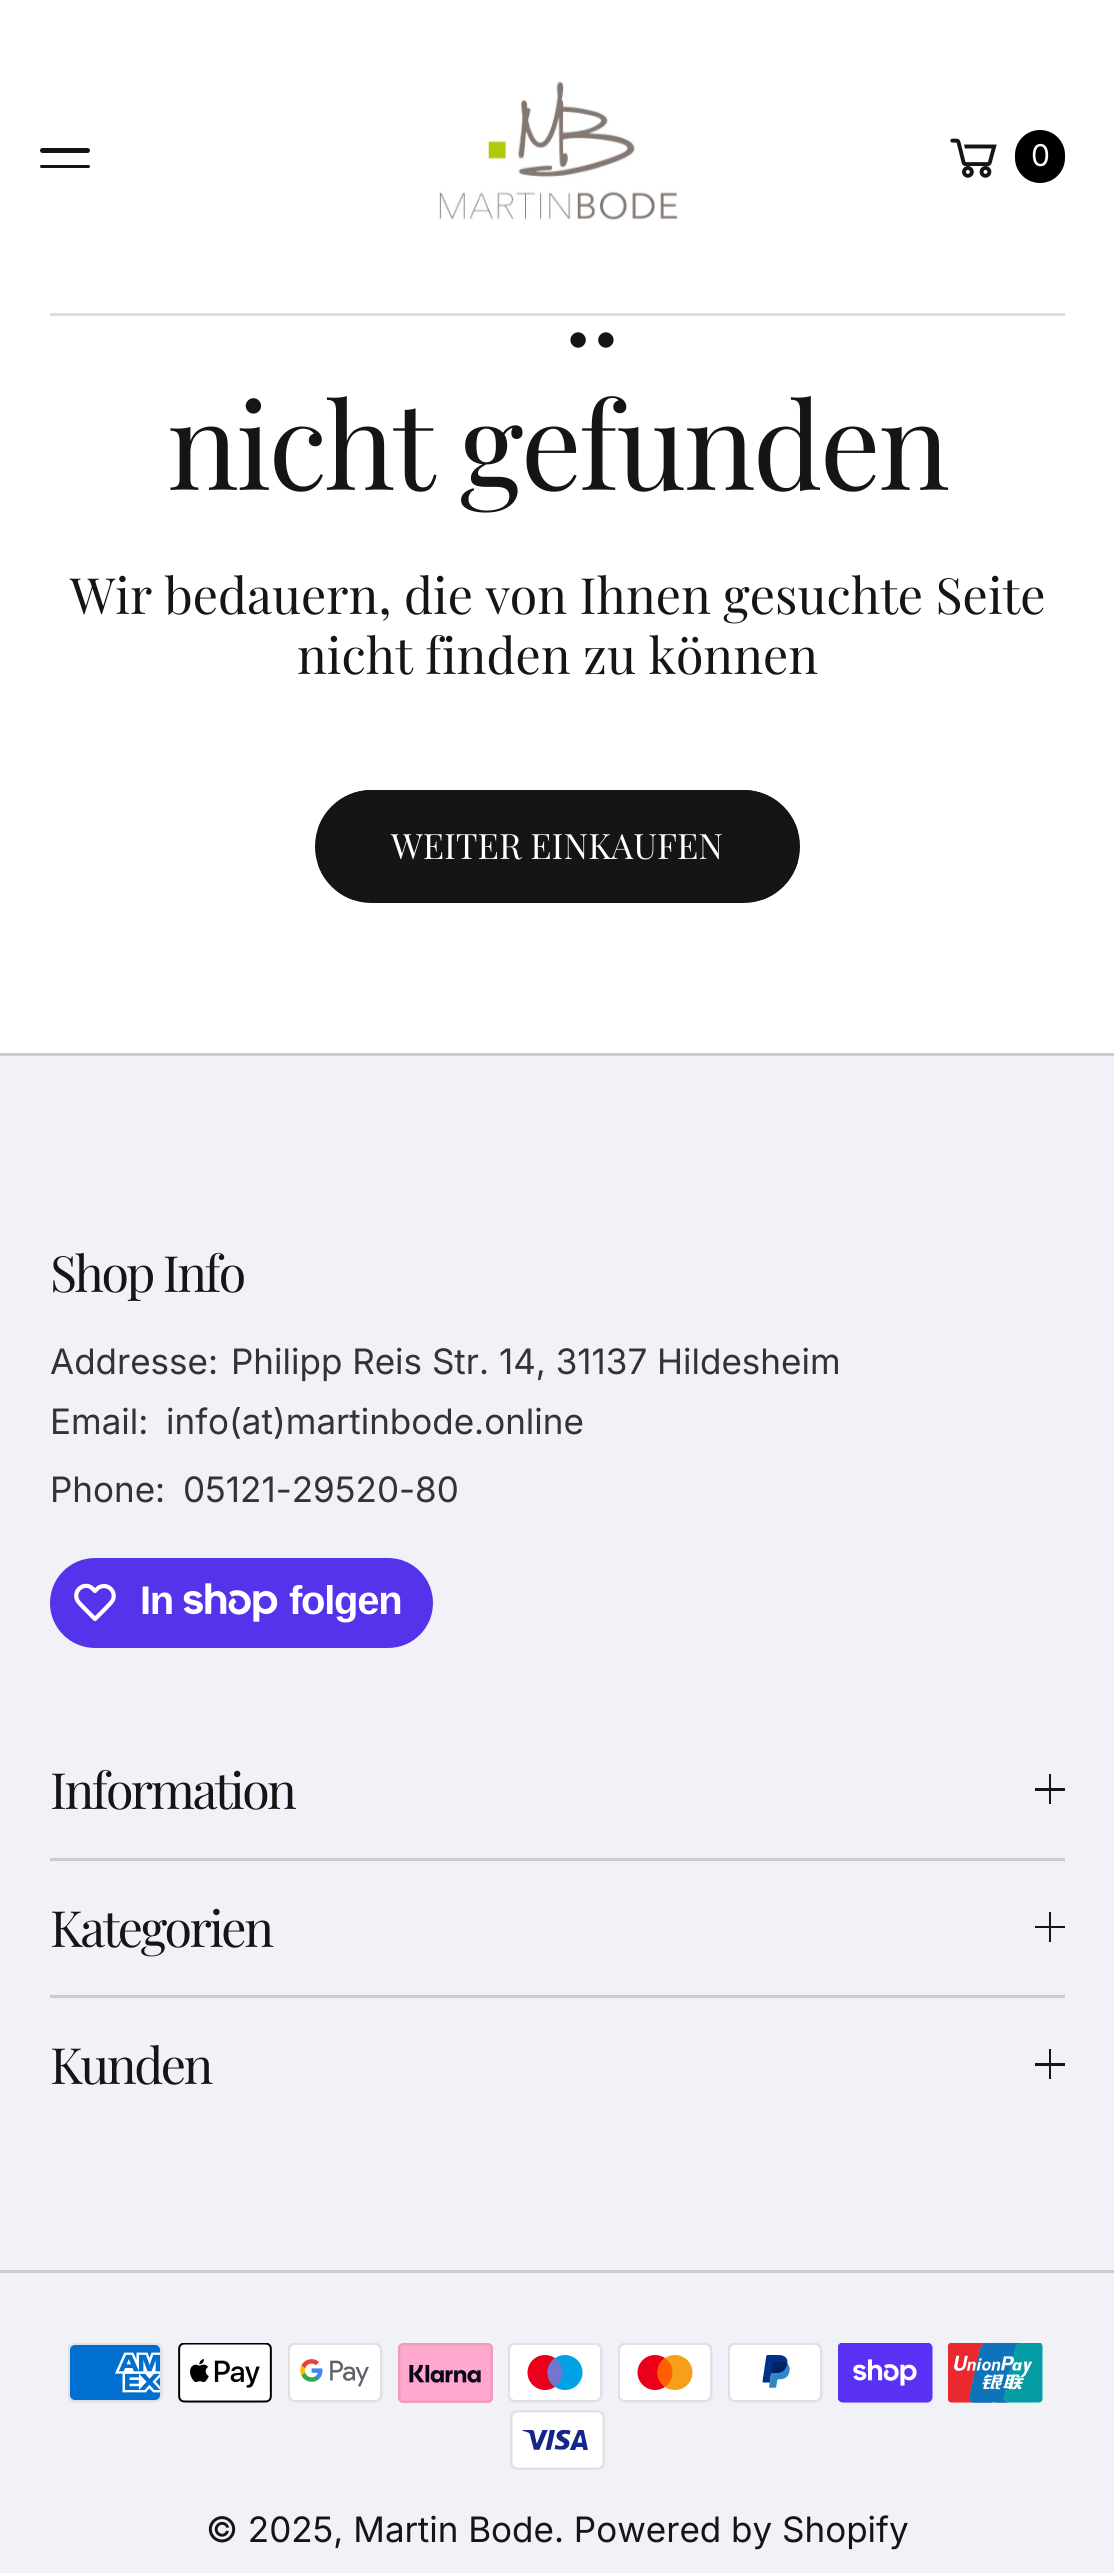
import math
import cairo

surface = cairo.ImageSurface(cairo.FORMAT_RGB24, 1114, 2573)
ctx = cairo.Context(surface)
options = cairo.FontOptions()
options.set_hint_metrics(cairo.HINT_METRICS_OFF)
options.set_hint_style(cairo.HINT_STYLE_NONE)
ctx.set_font_options(options)
ctx.set_miter_limit(4)


def set_color(code):
    ctx.set_source_rgb(*(v / 255 for v in bytes.fromhex(code[-6:])))


def draw_text(x, y, s, family, size, color, bold=False, italic=False):
    ctx.select_font_face(family, cairo.FONT_SLANT_ITALIC if italic else cairo.FONT_SLANT_NORMAL, cairo.FONT_WEIGHT_BOLD if bold else cairo.FONT_WEIGHT_NORMAL)
    ctx.set_font_size(size)
    set_color(color)
    ctx.move_to(x, y)
    ctx.show_text(s)


def draw_spaced(x, y, s, letter, word):
    ctx.move_to(x, y)
    for ch in s:
        ctx.show_text(ch)
        ctx.rel_move_to(letter + word * (ch == ' '), 0)


def fill_rect(x, y, w, h, color):
    set_color(color)
    ctx.rectangle(x, y, w, h)
    ctx.fill()


def rounded_rect(x, y, w, h, r):
    ctx.new_sub_path()
    for i, (u, v) in enumerate([(x + w - r, y + h - r), (x + r, y + h - r), (x + r, y + r), (x + w - r, y + r)]):
        ctx.arc(u, v, r, i * math.pi / 2, (i + 1) * math.pi / 2)
    ctx.close_path()


def draw_image(path, x, y, w, h):
    ctx.save()
    ctx.set_source_surface(cairo.ImageSurface.create_from_png(path), x, y)
    ctx.rectangle(x, y, w, h)
    ctx.fill()
    ctx.restore()


set_color("#ffffff")
ctx.paint()
fill_rect(50, 313, 1015, 3, "#dddddd")
set_color("#151515")
rounded_rect(40, 148, 50, 5, 2.5)
ctx.fill()
rounded_rect(40, 165, 50, 3, 1.5)
ctx.fill()
draw_image("assets/img1.png", 439, 81, 238, 140)
draw_image("assets/img2.png", 950, 138, 47, 40)
set_color("#000000")
rounded_rect(1015, 130, 50, 53, 25)
ctx.fill()
draw_text(1031, 166, "0", "Inter", 30, "#ffffff")
ctx.select_font_face("Playfair Display")
ctx.set_font_size(120)
set_color("#151515")
draw_spaced(563, 346, "..", -2.5, 0)
draw_spaced(167, 490, "nicht gefunden", -2.5, 0)
draw_text(70, 614, "Wir bedauern, die von Ihnen gesuchte Seite", "Playfair Display", 50, "#151515")
draw_text(297, 674, "nicht finden zu können", "Playfair Display", 50, "#151515")
ctx.save()
rounded_rect(315, 790, 485, 113, 56.5)
ctx.clip()
fill_rect(318, 790, 480, 110, "#151515")
ctx.restore()
rounded_rect(316.5, 791.5, 482, 110, 55)
ctx.set_line_width(3)
ctx.stroke()
draw_text(391, 859, "WEITER EINKAUFEN", "Playfair Display", 35, "#ffffff")
fill_rect(0, 1056, 1114, 1517, "#f1f2f8")
fill_rect(0, 1053, 1114, 3, "#cccccc")
ctx.set_font_size(50)
set_color("#151515")
draw_spaced(50, 1292, "Shop Info", -2.5, 0)
draw_text(50, 1374, "Addresse:", "Inter", 35, "#333333")
draw_text(231, 1374, "Philipp Reis Str. 14, 31137 Hildesheim", "Inter", 35, "#333333")
draw_text(50, 1434, "Email:", "Inter", 35, "#333333")
draw_text(166, 1434, "info(at)martinbode.online", "Inter", 35, "#333333")
draw_text(50, 1502, "Phone:", "Inter", 35, "#333333")
draw_text(183, 1502, "05121-29520-80", "Inter", 35, "#333333")
set_color("#5433eb")
rounded_rect(50, 1558, 383, 90, 45)
ctx.fill()
ctx.new_path()
ctx.move_to(93, 1589)
ctx.line_to(95, 1591)
ctx.curve_to(97, 1589, 98.5, 1587, 101, 1586.5)
ctx.curve_to(109, 1584, 116, 1592, 113, 1599.5)
ctx.curve_to(111.5, 1603, 108, 1605.5, 105.5, 1608.5)
ctx.line_to(95, 1619)
ctx.line_to(84.5, 1608.5)
ctx.curve_to(82, 1605.5, 78.5, 1603, 77, 1599.5)
ctx.curve_to(73, 1589.5, 85.5, 1581, 93, 1589)
ctx.close_path()
set_color("#ffffff")
ctx.set_line_width(4.2)
ctx.set_line_join(cairo.LINE_JOIN_ROUND)
ctx.stroke()
ctx.select_font_face("Liberation Sans", cairo.FONT_SLANT_NORMAL, cairo.FONT_WEIGHT_BOLD)
ctx.set_font_size(40)
draw_spaced(140, 1614, "In", -1.25, 0)
draw_image("assets/img3.png", 183, 1583, 95, 39)
draw_spaced(289, 1614, "folgen", -1.25, 0)
ctx.select_font_face("Playfair Display")
ctx.set_font_size(50)
set_color("#151515")
draw_spaced(50, 1809, "Information", -2.5, 0)
fill_rect(1049, 1774, 2, 30, "#151515")
fill_rect(1035, 1788, 30, 3, "#151515")
fill_rect(50, 1858, 1015, 3, "#cccccc")
set_color("#151515")
draw_spaced(50, 1947, "Kategorien", -2.5, 0)
fill_rect(1049, 1912, 2, 30, "#151515")
fill_rect(1035, 1926, 30, 2, "#151515")
fill_rect(50, 1995, 1015, 3, "#cccccc")
set_color("#151515")
draw_spaced(50, 2084, "Kunden", -2.5, 0)
fill_rect(1049, 2049, 2, 30, "#151515")
fill_rect(1035, 2063, 30, 3, "#151515")
fill_rect(0, 2270, 1114, 3, "#cccccc")
draw_image("assets/img4.png", 68, 2343, 95, 60)
draw_image("assets/img5.png", 178, 2343, 94, 60)
draw_image("assets/img6.png", 288, 2343, 95, 60)
draw_image("assets/img7.png", 398, 2343, 95, 60)
draw_image("assets/img8.png", 508, 2343, 95, 60)
draw_image("assets/img9.png", 618, 2343, 95, 60)
draw_image("assets/img10.png", 728, 2343, 95, 60)
draw_image("assets/img11.png", 838, 2343, 95, 60)
draw_image("assets/img12.png", 948, 2343, 95, 60)
draw_image("assets/img13.png", 510, 2410, 95, 60)
draw_text(206, 2542, "© 2025, Martin Bode. Powered by Shopify", "Inter", 35, "#151515")
surface.write_to_png("output.png")
